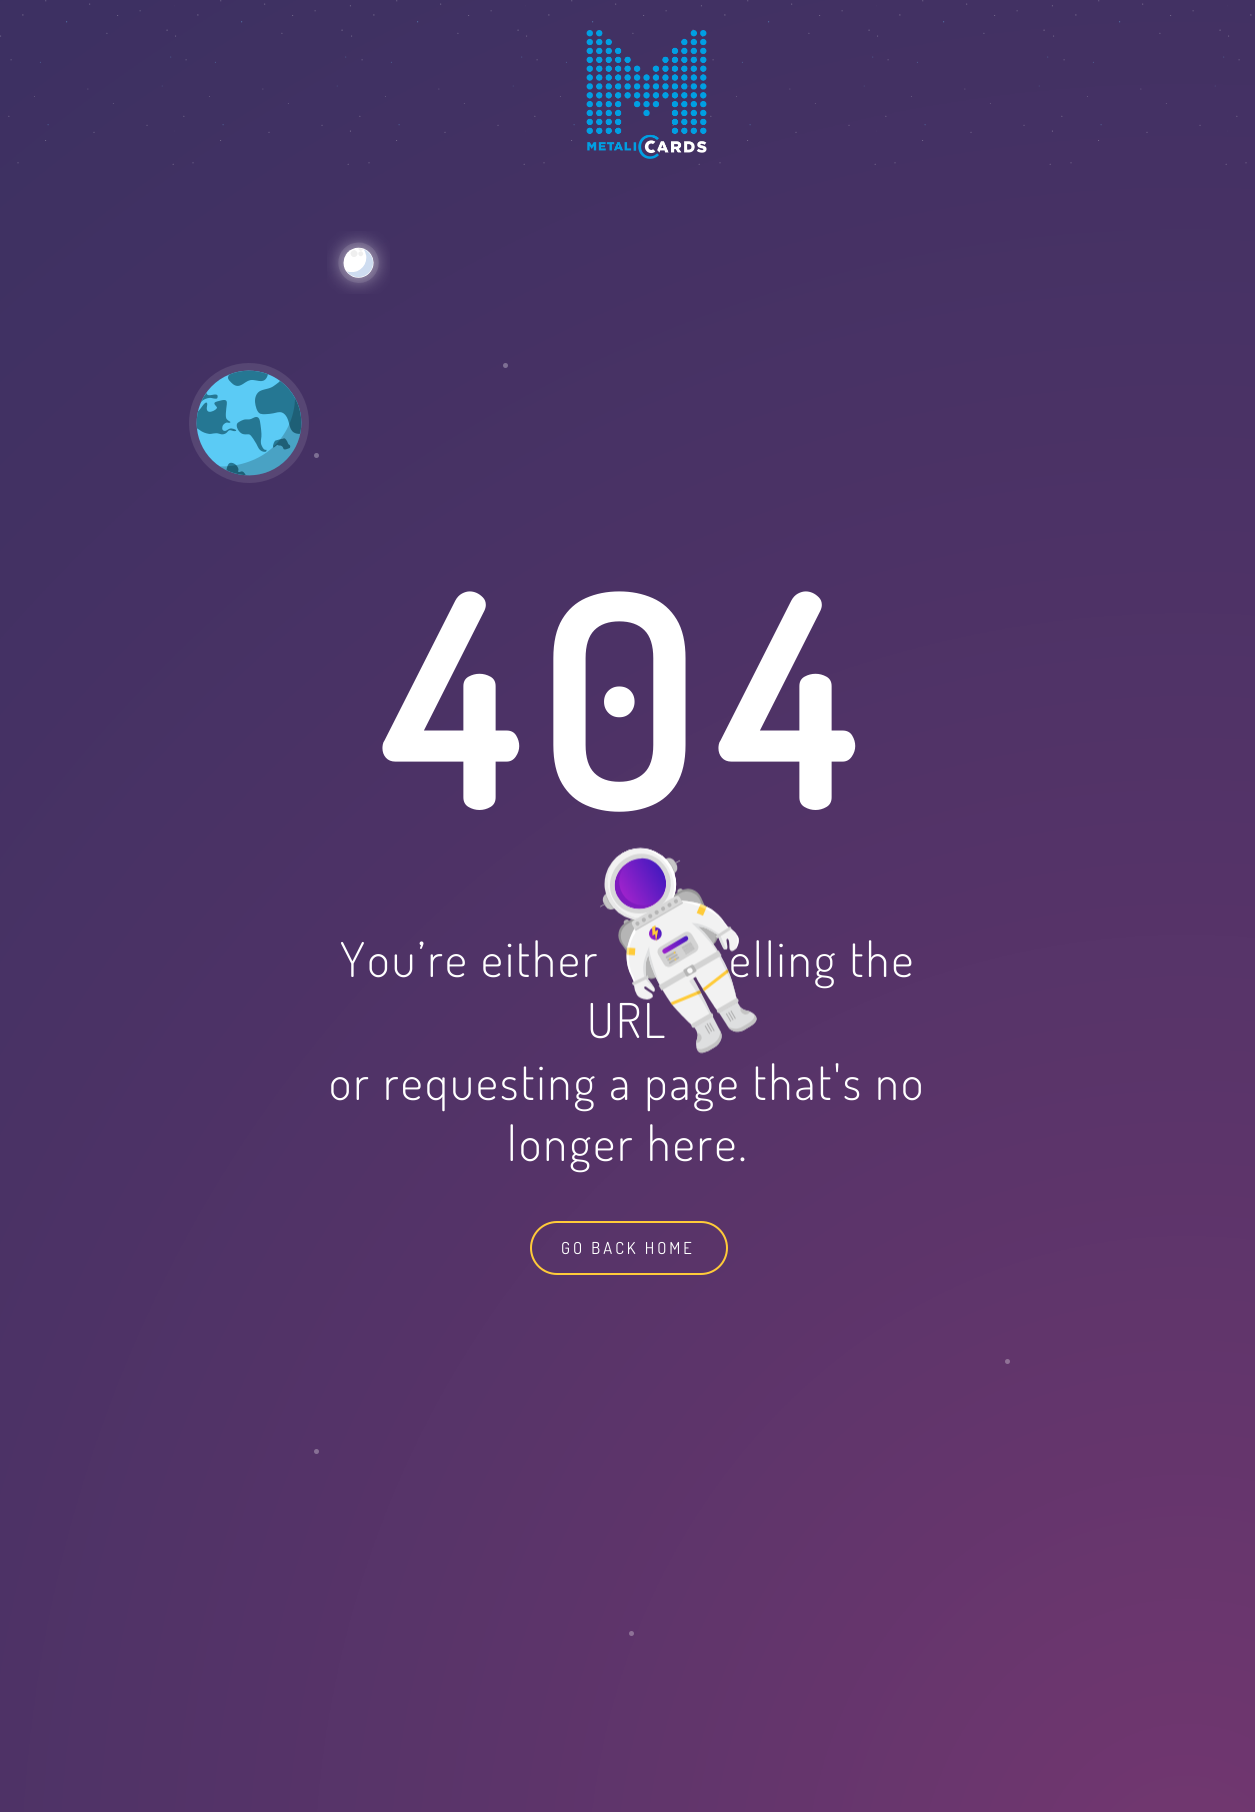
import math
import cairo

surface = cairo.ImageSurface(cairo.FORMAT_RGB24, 1255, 1812)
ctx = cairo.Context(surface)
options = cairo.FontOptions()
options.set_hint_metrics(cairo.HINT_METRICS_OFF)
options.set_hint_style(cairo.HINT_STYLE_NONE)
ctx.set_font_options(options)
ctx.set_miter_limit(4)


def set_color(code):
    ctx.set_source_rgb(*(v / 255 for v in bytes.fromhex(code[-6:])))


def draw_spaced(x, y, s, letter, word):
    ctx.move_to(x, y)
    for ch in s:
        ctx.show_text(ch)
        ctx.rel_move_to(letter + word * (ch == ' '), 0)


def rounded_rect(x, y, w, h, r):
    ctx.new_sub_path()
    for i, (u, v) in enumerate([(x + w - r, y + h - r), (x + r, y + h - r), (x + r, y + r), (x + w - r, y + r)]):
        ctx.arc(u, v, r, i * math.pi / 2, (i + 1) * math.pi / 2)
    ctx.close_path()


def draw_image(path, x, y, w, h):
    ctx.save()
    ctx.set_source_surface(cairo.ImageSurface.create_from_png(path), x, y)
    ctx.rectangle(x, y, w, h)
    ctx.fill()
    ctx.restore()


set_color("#ffffff")
ctx.paint()
draw_image("assets/img1.png", 0, 0, 1255, 1812)
draw_image("assets/img2.png", 0, 0, 1252, 165)
draw_image("assets/img3.png", 586, 30, 121, 129)
draw_image("assets/img4.png", 327, 231, 63, 63)
draw_image("assets/img5.png", 189, 363, 120, 120)
ctx.select_font_face("Dosis Light")
ctx.set_font_size(48)
set_color("#ffffff")
draw_spaced(729, 977, "elling the", 2.4, 0)
draw_spaced(587, 1038, "URL", 2.4, 0)
draw_image("assets/img6.png", 600, 847, 157, 207)
set_color("#7e6f93")
ctx.arc(505.5, 365.5, 2.5, 0, 2 * math.pi)
ctx.fill()
set_color("#7d6f93")
ctx.arc(316.5, 455.5, 2.5, 0, 2 * math.pi)
ctx.fill()
set_color("#907297")
ctx.arc(1007.5, 1361.5, 2.5, 0, 2 * math.pi)
ctx.fill()
set_color("#877095")
ctx.arc(316.5, 1451.5, 2.5, 0, 2 * math.pi)
ctx.fill()
set_color("#8e7197")
ctx.arc(631.5, 1633.5, 2.5, 0, 2 * math.pi)
ctx.fill()
ctx.select_font_face("Dosis", cairo.FONT_SLANT_NORMAL, cairo.FONT_WEIGHT_BOLD)
ctx.set_font_size(288)
set_color("#ffffff")
draw_spaced(381, 810, "404", 24, 0)
ctx.select_font_face("Dosis Light")
ctx.set_font_size(48)
draw_spaced(340, 977, "You’re either", 2.4, 0)
draw_spaced(329, 1100, "or requesting a page that's no", 2.4, 0)
draw_spaced(507, 1161, "longer here.", 2.4, 0)
rounded_rect(531, 1222, 196, 52, 26)
set_color("#ffcb39")
ctx.stroke()
ctx.select_font_face("Dosis")
ctx.set_font_size(16.5)
set_color("#ffffff")
draw_spaced(561, 1254, "GO BACK HOME", 3, 0)
surface.write_to_png("output.png")
